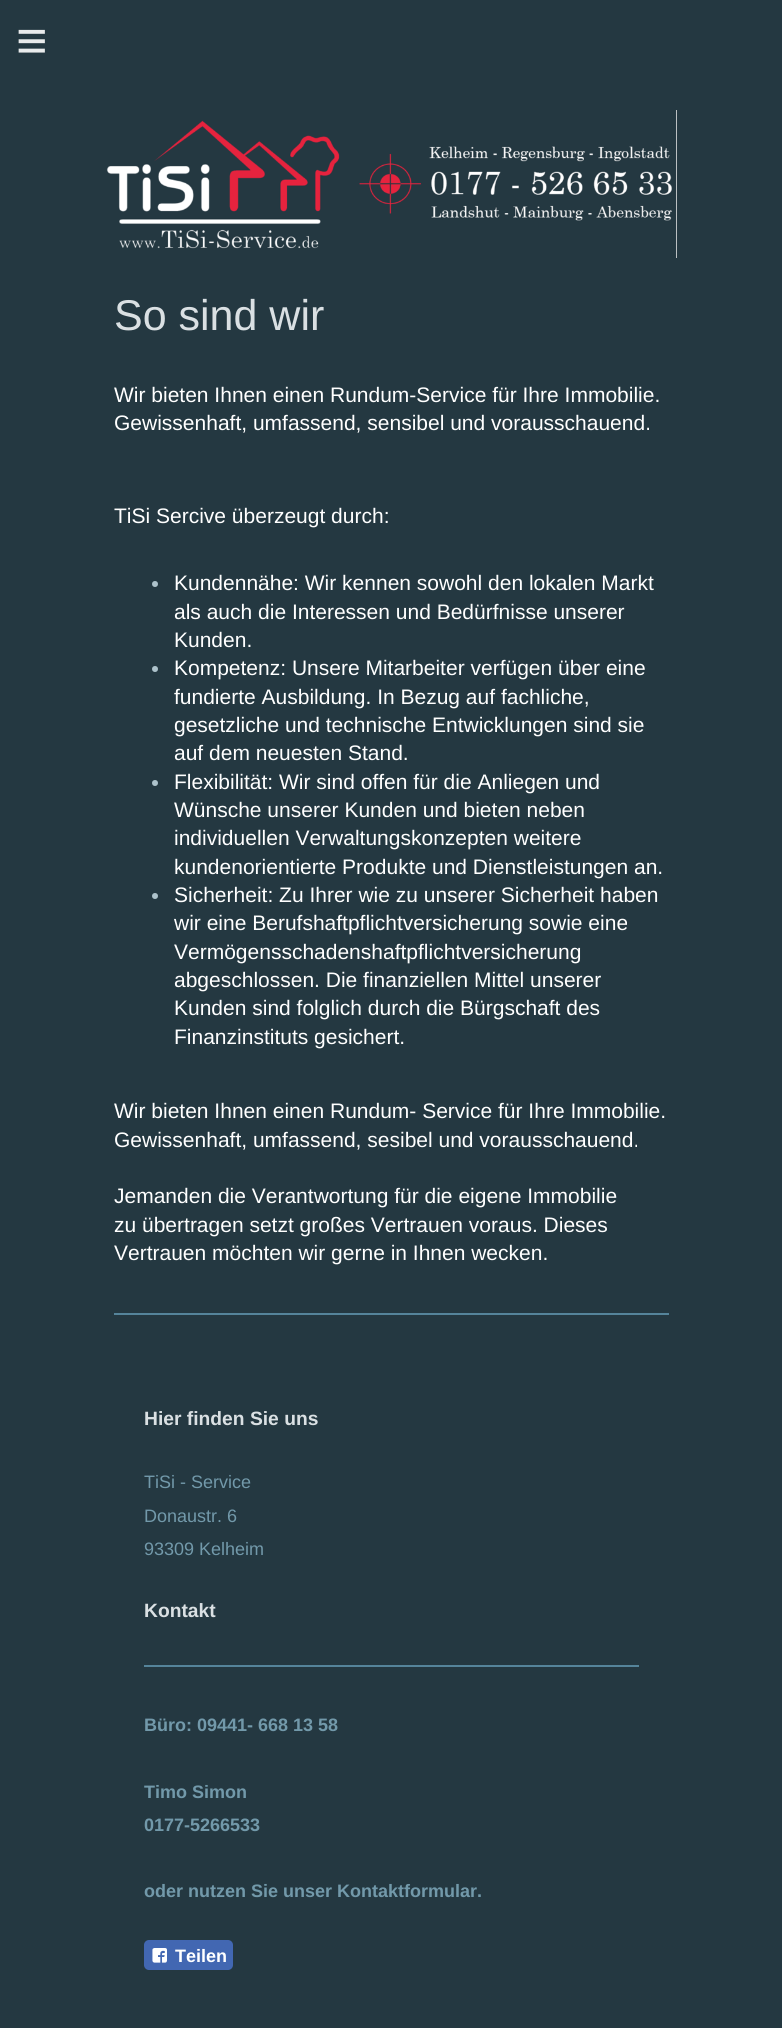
import math
import cairo

surface = cairo.ImageSurface(cairo.FORMAT_RGB24, 782, 2028)
ctx = cairo.Context(surface)
options = cairo.FontOptions()
options.set_hint_metrics(cairo.HINT_METRICS_OFF)
options.set_hint_style(cairo.HINT_STYLE_NONE)
ctx.set_font_options(options)
ctx.set_miter_limit(4)


def set_color(code):
    ctx.set_source_rgb(*(v / 255 for v in bytes.fromhex(code[-6:])))


def draw_text(x, y, s, family, size, color, bold=False, italic=False):
    ctx.select_font_face(family, cairo.FONT_SLANT_ITALIC if italic else cairo.FONT_SLANT_NORMAL, cairo.FONT_WEIGHT_BOLD if bold else cairo.FONT_WEIGHT_NORMAL)
    ctx.set_font_size(size)
    set_color(color)
    ctx.move_to(x, y)
    ctx.show_text(s)


def draw_spaced(x, y, s, letter, word):
    ctx.move_to(x, y)
    for ch in s:
        ctx.show_text(ch)
        ctx.rel_move_to(letter + word * (ch == ' '), 0)


def fill_rect(x, y, w, h, color):
    set_color(color)
    ctx.rectangle(x, y, w, h)
    ctx.fill()


def rounded_rect(x, y, w, h, r):
    ctx.new_sub_path()
    for i, (u, v) in enumerate([(x + w - r, y + h - r), (x + r, y + h - r), (x + r, y + r), (x + w - r, y + r)]):
        ctx.arc(u, v, r, i * math.pi / 2, (i + 1) * math.pi / 2)
    ctx.close_path()


def draw_image(path, x, y, w, h):
    ctx.save()
    ctx.set_source_surface(cairo.ImageSurface.create_from_png(path), x, y)
    ctx.rectangle(x, y, w, h)
    ctx.fill()
    ctx.restore()


set_color("#243841")
ctx.paint()
ctx.select_font_face("Liberation Sans")
ctx.set_font_size(54)
set_color("#e9ebec")
draw_spaced(16, 59, "≡", 16, 0)
fill_rect(676, 110, 1, 148, "#eeeeee")
draw_image("assets/img1.png", 106, 110, 571, 148)
draw_text(114, 330, "So sind wir", "Liberation Sans", 43, "#dae0e3")
draw_text(114, 402, "Wir bieten Ihnen einen Rundum-Service für Ihre Immobilie.", "Liberation Sans", 21, "#ffffff")
draw_text(114, 430, "Gewissenhaft, umfassend, sensibel und vorausschauend.", "Liberation Sans", 21, "#ffffff")
draw_text(114, 523, "TiSi Sercive überzeugt durch:", "Liberation Sans", 21, "#ffffff")
set_color("#adc2cb")
ctx.new_path()
ctx.arc(155, 584, 3, 0, 2 * math.pi)
ctx.fill()
draw_text(174, 590, "Kundennähe: Wir kennen sowohl den lokalen Markt", "Liberation Sans", 21, "#ffffff")
draw_text(174, 619, "als auch die Interessen und Bedürfnisse unserer", "Liberation Sans", 21, "#ffffff")
draw_text(174, 647, "Kunden.", "Liberation Sans", 21, "#ffffff")
set_color("#adc2cb")
ctx.new_path()
ctx.arc(155, 669, 3, 0, 2 * math.pi)
ctx.fill()
draw_text(174, 675, "Kompetenz: Unsere Mitarbeiter verfügen über eine", "Liberation Sans", 21, "#ffffff")
draw_text(174, 704, "fundierte Ausbildung. In Bezug auf fachliche,", "Liberation Sans", 21, "#ffffff")
draw_text(174, 732, "gesetzliche und technische Entwicklungen sind sie", "Liberation Sans", 21, "#ffffff")
draw_text(174, 760, "auf dem neuesten Stand.", "Liberation Sans", 21, "#ffffff")
set_color("#adc2cb")
ctx.new_path()
ctx.arc(155, 783, 3, 0, 2 * math.pi)
ctx.fill()
draw_text(174, 789, "Flexibilität: Wir sind offen für die Anliegen und", "Liberation Sans", 21, "#ffffff")
draw_text(174, 817, "Wünsche unserer Kunden und bieten neben", "Liberation Sans", 21, "#ffffff")
draw_text(174, 845, "individuellen Verwaltungskonzepten weitere", "Liberation Sans", 21, "#ffffff")
draw_text(174, 874, "kundenorientierte Produkte und Dienstleistungen an.", "Liberation Sans", 21, "#ffffff")
set_color("#adc2cb")
ctx.new_path()
ctx.arc(155, 896, 3, 0, 2 * math.pi)
ctx.fill()
draw_text(174, 902, "Sicherheit: Zu Ihrer wie zu unserer Sicherheit haben", "Liberation Sans", 21, "#ffffff")
draw_text(174, 930, "wir eine Berufshaftpflichtversicherung sowie eine", "Liberation Sans", 21, "#ffffff")
draw_text(174, 959, "Vermögensschadenshaftpflichtversicherung", "Liberation Sans", 21, "#ffffff")
draw_text(174, 987, "abgeschlossen. Die finanziellen Mittel unserer", "Liberation Sans", 21, "#ffffff")
draw_text(174, 1015, "Kunden sind folglich durch die Bürgschaft des", "Liberation Sans", 21, "#ffffff")
draw_text(174, 1044, "Finanzinstituts gesichert.", "Liberation Sans", 21, "#ffffff")
draw_text(114, 1118, "Wir bieten Ihnen einen Rundum- Service für Ihre Immobilie.", "Liberation Sans", 21, "#ffffff")
draw_text(114, 1147, "Gewissenhaft, umfassend, sesibel und vorausschauend.", "Liberation Sans", 21, "#ffffff")
draw_text(114, 1203, "Jemanden die Verantwortung für die eigene Immobilie", "Liberation Sans", 21, "#ffffff")
draw_text(114, 1232, "zu übertragen setzt großes Vertrauen voraus. Dieses", "Liberation Sans", 21, "#ffffff")
draw_text(114, 1260, "Vertrauen möchten wir gerne in Ihnen wecken.", "Liberation Sans", 21, "#ffffff")
fill_rect(114, 1313, 555, 2, "#55849a")
draw_text(144, 1425, "Hier finden Sie uns", "Liberation Sans", 19.25, "#dae0e3", bold=True)
draw_text(144, 1488, "TiSi - Service", "Liberation Sans", 18, "#7299aa")
draw_text(144, 1522, "Donaustr. 6", "Liberation Sans", 18, "#7299aa")
draw_text(144, 1555, "93309 Kelheim", "Liberation Sans", 18, "#7299aa")
draw_text(144, 1617, "Kontakt", "Liberation Sans", 19.25, "#dae0e3", bold=True)
fill_rect(144, 1665, 495, 2, "#55849a")
draw_text(144, 1731, "Büro: 09441- 668 13 58", "Liberation Sans", 18, "#7299aa", bold=True)
draw_text(144, 1798, "Timo Simon", "Liberation Sans", 18, "#7299aa", bold=True)
draw_text(144, 1831, "0177-5266533", "Liberation Sans", 18, "#7299aa", bold=True)
draw_text(144, 1897, "oder nutzen Sie unser Kontaktformular.", "Liberation Sans", 18, "#7299aa", bold=True)
set_color("#4267b2")
rounded_rect(144, 1940, 89, 30, 5)
ctx.fill()
draw_image("assets/img2.png", 152, 1948, 15, 15)
draw_text(175, 1962, "Teilen", "Liberation Sans", 18, "#ffffff", bold=True)
surface.write_to_png("output.png")
